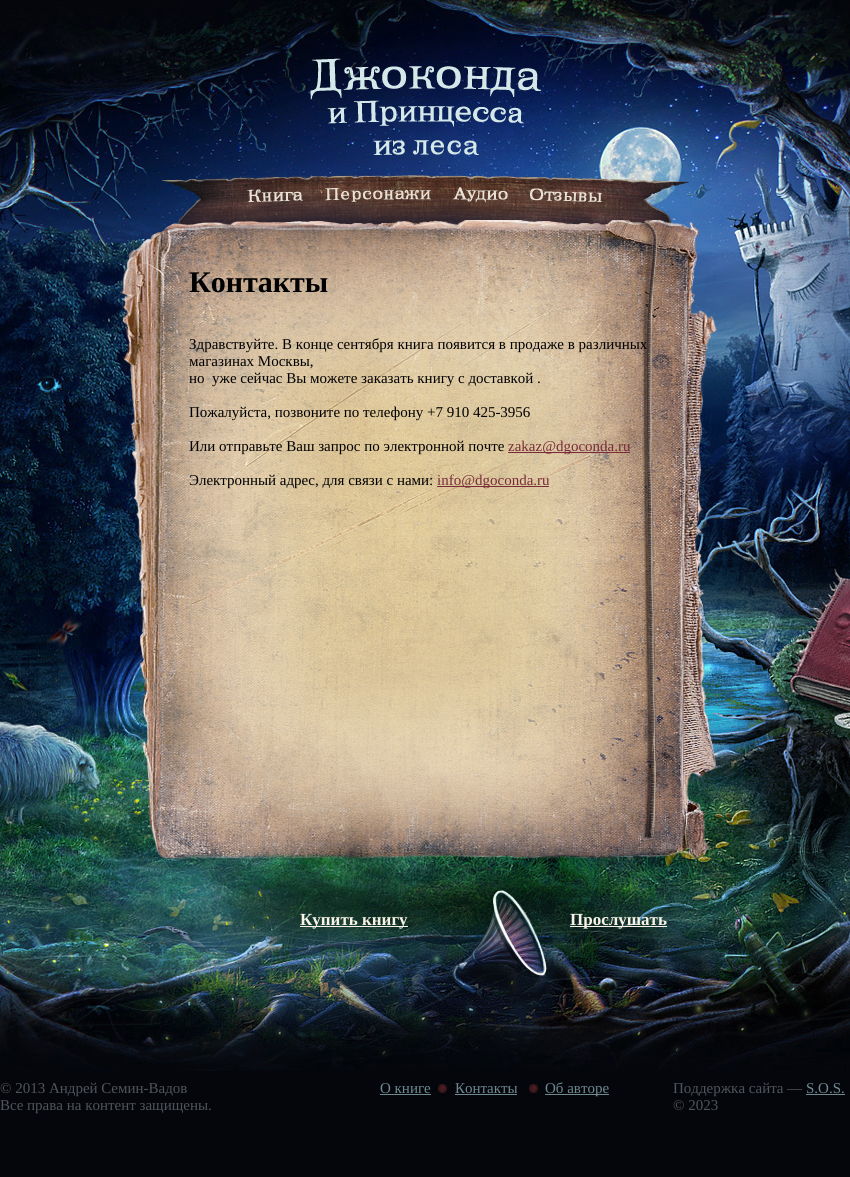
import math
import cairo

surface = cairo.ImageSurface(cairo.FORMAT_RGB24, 850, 1177)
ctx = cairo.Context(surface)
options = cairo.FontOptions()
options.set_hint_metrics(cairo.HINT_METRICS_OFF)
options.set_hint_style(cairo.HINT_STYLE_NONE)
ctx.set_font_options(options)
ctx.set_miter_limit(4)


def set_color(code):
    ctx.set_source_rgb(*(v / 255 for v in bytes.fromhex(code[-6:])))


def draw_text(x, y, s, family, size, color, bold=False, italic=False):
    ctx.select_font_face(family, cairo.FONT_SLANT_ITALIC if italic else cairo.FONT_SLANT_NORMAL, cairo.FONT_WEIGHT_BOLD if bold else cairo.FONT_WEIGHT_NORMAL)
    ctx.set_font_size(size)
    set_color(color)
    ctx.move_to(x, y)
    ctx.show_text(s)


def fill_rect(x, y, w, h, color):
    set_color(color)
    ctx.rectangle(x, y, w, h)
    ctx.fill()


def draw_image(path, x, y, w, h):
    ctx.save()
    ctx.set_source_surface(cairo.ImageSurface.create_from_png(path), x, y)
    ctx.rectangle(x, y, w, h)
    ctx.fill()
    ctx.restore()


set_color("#04060c")
ctx.paint()
draw_image("assets/img1.png", 0, 0, 850, 1071)
draw_image("assets/img2.png", 310, 58, 231, 97)
draw_image("assets/img3.png", 161, 175, 529, 51)
draw_image("assets/img4.png", 247, 189, 56, 13)
draw_image("assets/img5.png", 325, 188, 106, 14)
draw_image("assets/img6.png", 452, 187, 56, 16)
draw_image("assets/img7.png", 530, 188, 73, 14)
draw_image("assets/img8.png", 120, 220, 604, 640)
draw_text(189, 292, "Контакты", "Liberation Serif", 30, "#000000", bold=True)
draw_text(189, 349, "Здравствуйте. В конце сентября книга появится в продаже в различных", "Liberation Serif", 15, "#000000")
draw_text(189, 366, "магазинах Москвы,", "Liberation Serif", 15, "#000000")
draw_text(189, 383, "но  уже сейчас Вы можете заказать книгу с доставкой .", "Liberation Serif", 15, "#000000")
draw_text(189, 417, "Пожалуйста, позвоните по телефону +7 910 425-3956", "Liberation Serif", 15, "#000000")
draw_text(189, 451, "Или отправьте Ваш запрос по электронной почте", "Liberation Serif", 15, "#000000")
fill_rect(508, 452, 122, 1, "#792b38")
draw_text(508, 451, "zakaz@dgoconda.ru", "Liberation Serif", 15, "#792b38")
draw_text(189, 485, "Электронный адрес, для связи с нами:", "Liberation Serif", 15, "#000000")
fill_rect(437, 486, 112, 1, "#792b38")
draw_text(437, 485, "info@dgoconda.ru", "Liberation Serif", 15, "#792b38")
fill_rect(300, 926, 108, 1, "#f7f4e7")
draw_text(300, 925, "Купить книгу", "Liberation Serif", 17, "#f7f4e7", bold=True)
draw_image("assets/img9.png", 452, 890, 109, 118)
fill_rect(570, 926, 97, 1, "#f7f4e7")
draw_text(570, 925, "Прослушать", "Liberation Serif", 17, "#f7f4e7", bold=True)
draw_text(0, 1093, "© 2013 Андрей Семин-Вадов", "Liberation Serif", 15, "#505559")
draw_text(0, 1110, "Все права на контент защищены.", "Liberation Serif", 15, "#505559")
draw_text(380, 1093, "О книге", "Liberation Serif", 15, "#6f8991")
fill_rect(380, 1094, 51, 1, "#6f8991")
draw_image("assets/img10.png", 438, 1084, 9, 9)
draw_text(455, 1093, "Контакты", "Liberation Serif", 15, "#6f8991")
fill_rect(455, 1094, 62, 1, "#6f8991")
draw_image("assets/img10.png", 529, 1084, 9, 9)
fill_rect(545, 1094, 64, 1, "#6f8991")
draw_text(545, 1093, "Об авторе", "Liberation Serif", 15, "#6f8991")
draw_text(673, 1093, "Поддержка сайта —", "Liberation Serif", 15, "#505559")
draw_text(806, 1093, "S.O.S.", "Liberation Serif", 15, "#6f8991")
fill_rect(806, 1094, 39, 1, "#6f8991")
draw_text(673, 1110, "© 2023", "Liberation Serif", 15, "#505559")
surface.write_to_png("output.png")
